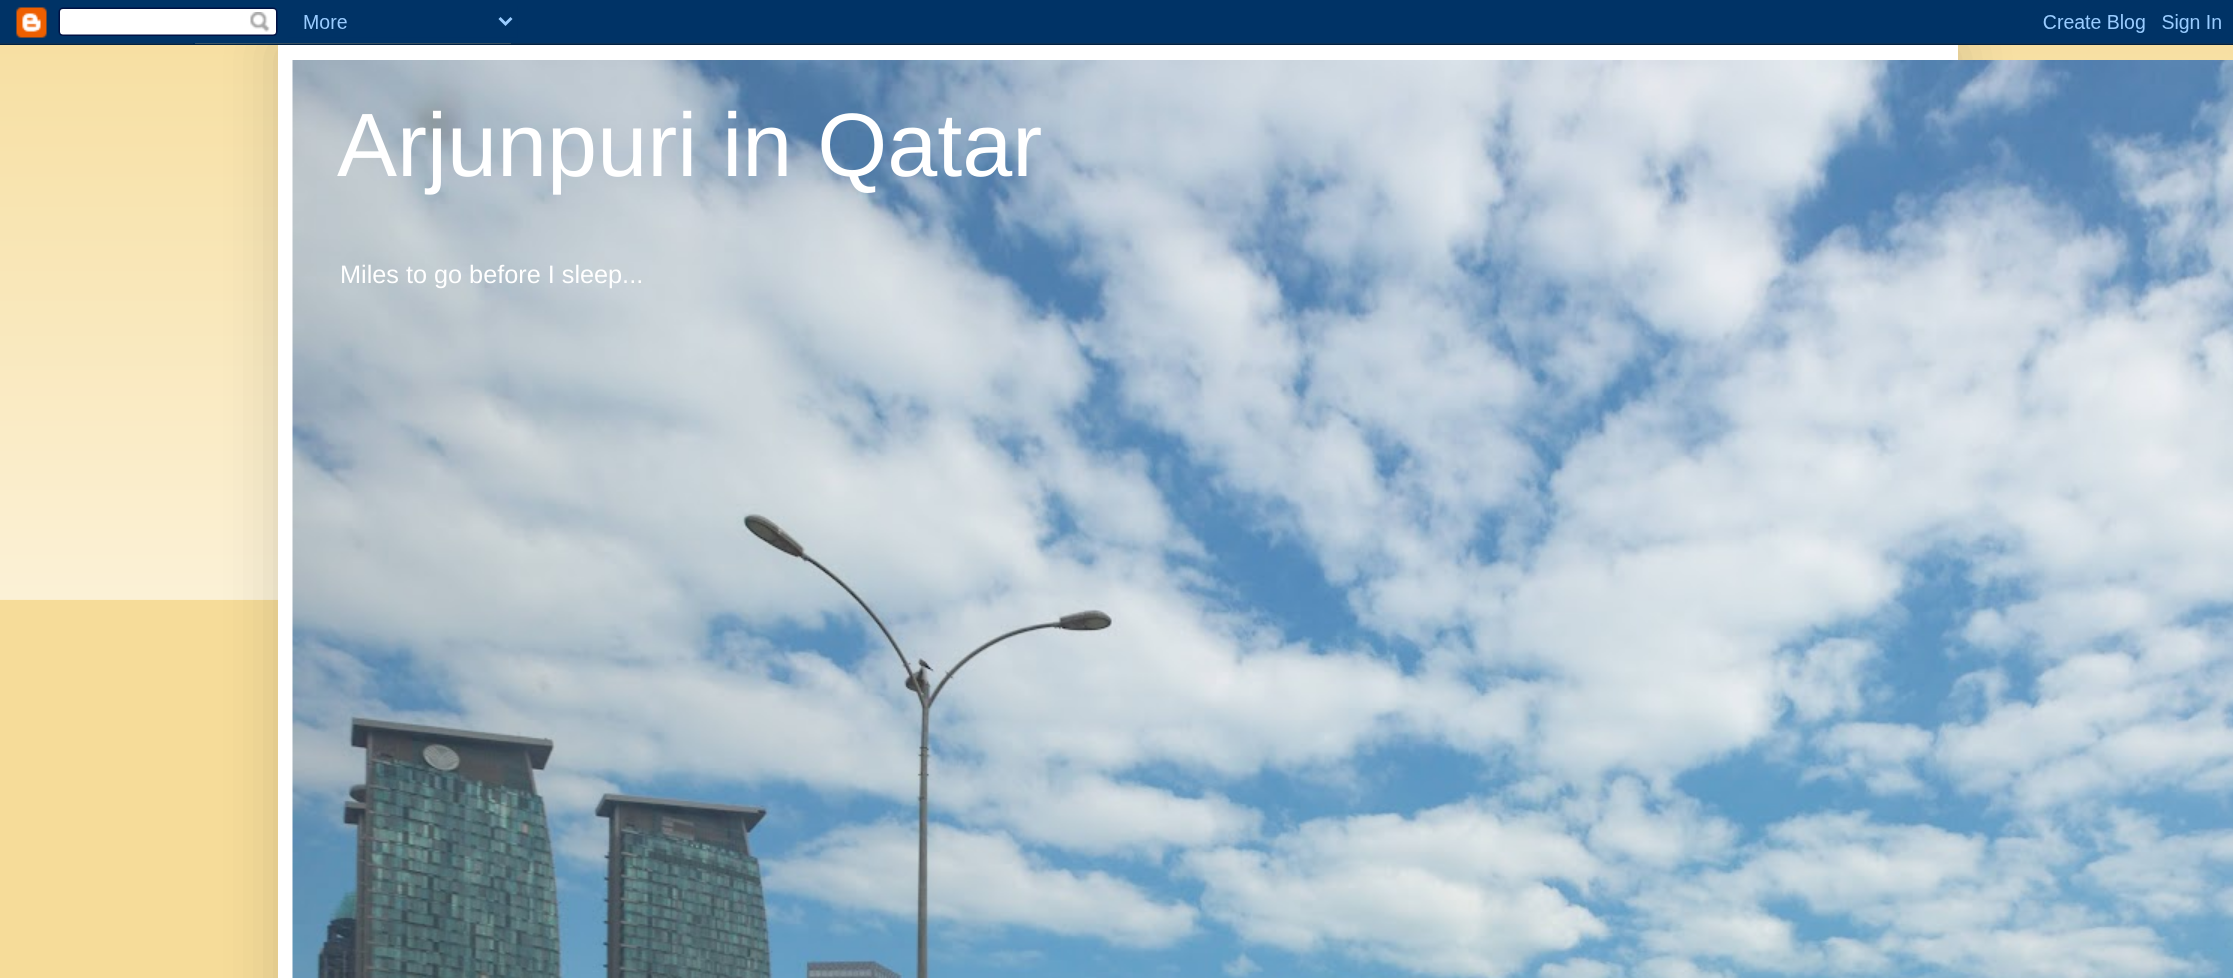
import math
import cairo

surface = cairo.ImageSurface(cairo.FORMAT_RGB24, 2233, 978)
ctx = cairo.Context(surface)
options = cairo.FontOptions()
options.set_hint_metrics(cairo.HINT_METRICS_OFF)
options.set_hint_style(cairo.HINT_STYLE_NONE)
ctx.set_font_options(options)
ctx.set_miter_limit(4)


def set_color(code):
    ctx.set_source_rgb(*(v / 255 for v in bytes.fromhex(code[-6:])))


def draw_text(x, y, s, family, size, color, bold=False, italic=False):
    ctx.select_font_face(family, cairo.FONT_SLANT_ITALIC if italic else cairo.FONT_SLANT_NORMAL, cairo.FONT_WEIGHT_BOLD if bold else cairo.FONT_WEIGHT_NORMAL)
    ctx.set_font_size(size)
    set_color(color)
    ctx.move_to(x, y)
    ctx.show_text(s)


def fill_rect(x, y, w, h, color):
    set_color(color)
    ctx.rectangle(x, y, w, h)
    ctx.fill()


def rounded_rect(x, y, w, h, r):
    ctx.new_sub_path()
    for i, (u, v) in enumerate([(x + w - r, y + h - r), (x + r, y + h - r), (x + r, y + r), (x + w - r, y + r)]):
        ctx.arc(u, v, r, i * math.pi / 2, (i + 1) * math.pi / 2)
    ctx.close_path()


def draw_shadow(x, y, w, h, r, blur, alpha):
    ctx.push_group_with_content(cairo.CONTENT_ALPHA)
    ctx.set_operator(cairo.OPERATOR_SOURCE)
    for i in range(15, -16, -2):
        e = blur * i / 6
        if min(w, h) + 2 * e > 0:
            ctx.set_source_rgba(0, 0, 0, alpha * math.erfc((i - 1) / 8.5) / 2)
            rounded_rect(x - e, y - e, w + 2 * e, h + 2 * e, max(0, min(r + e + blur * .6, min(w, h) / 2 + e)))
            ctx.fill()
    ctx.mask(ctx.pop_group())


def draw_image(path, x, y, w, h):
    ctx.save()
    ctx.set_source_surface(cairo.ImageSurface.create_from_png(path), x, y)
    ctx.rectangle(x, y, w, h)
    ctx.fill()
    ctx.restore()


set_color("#f6dc99")
ctx.paint()
draw_image("assets/img2.png", 0, 43, 2233, 557)
set_color("#000000")
draw_shadow(278, 45, 1680, 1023, 0, 30, 0.15)
draw_image("assets/img1.png", 0, 0, 2233, 45)
fill_rect(278, 45, 1680, 933, "#ffffff")
draw_image("assets/img3.png", 292, 60, 1941, 918)
draw_text(337, 176, "Arjunpuri in Qatar", "Liberation Sans", 90, "#ffffff")
draw_text(340, 283, "Miles to go before I sleep...", "Liberation Sans", 25.25, "#ffffff")
surface.write_to_png("output.png")
